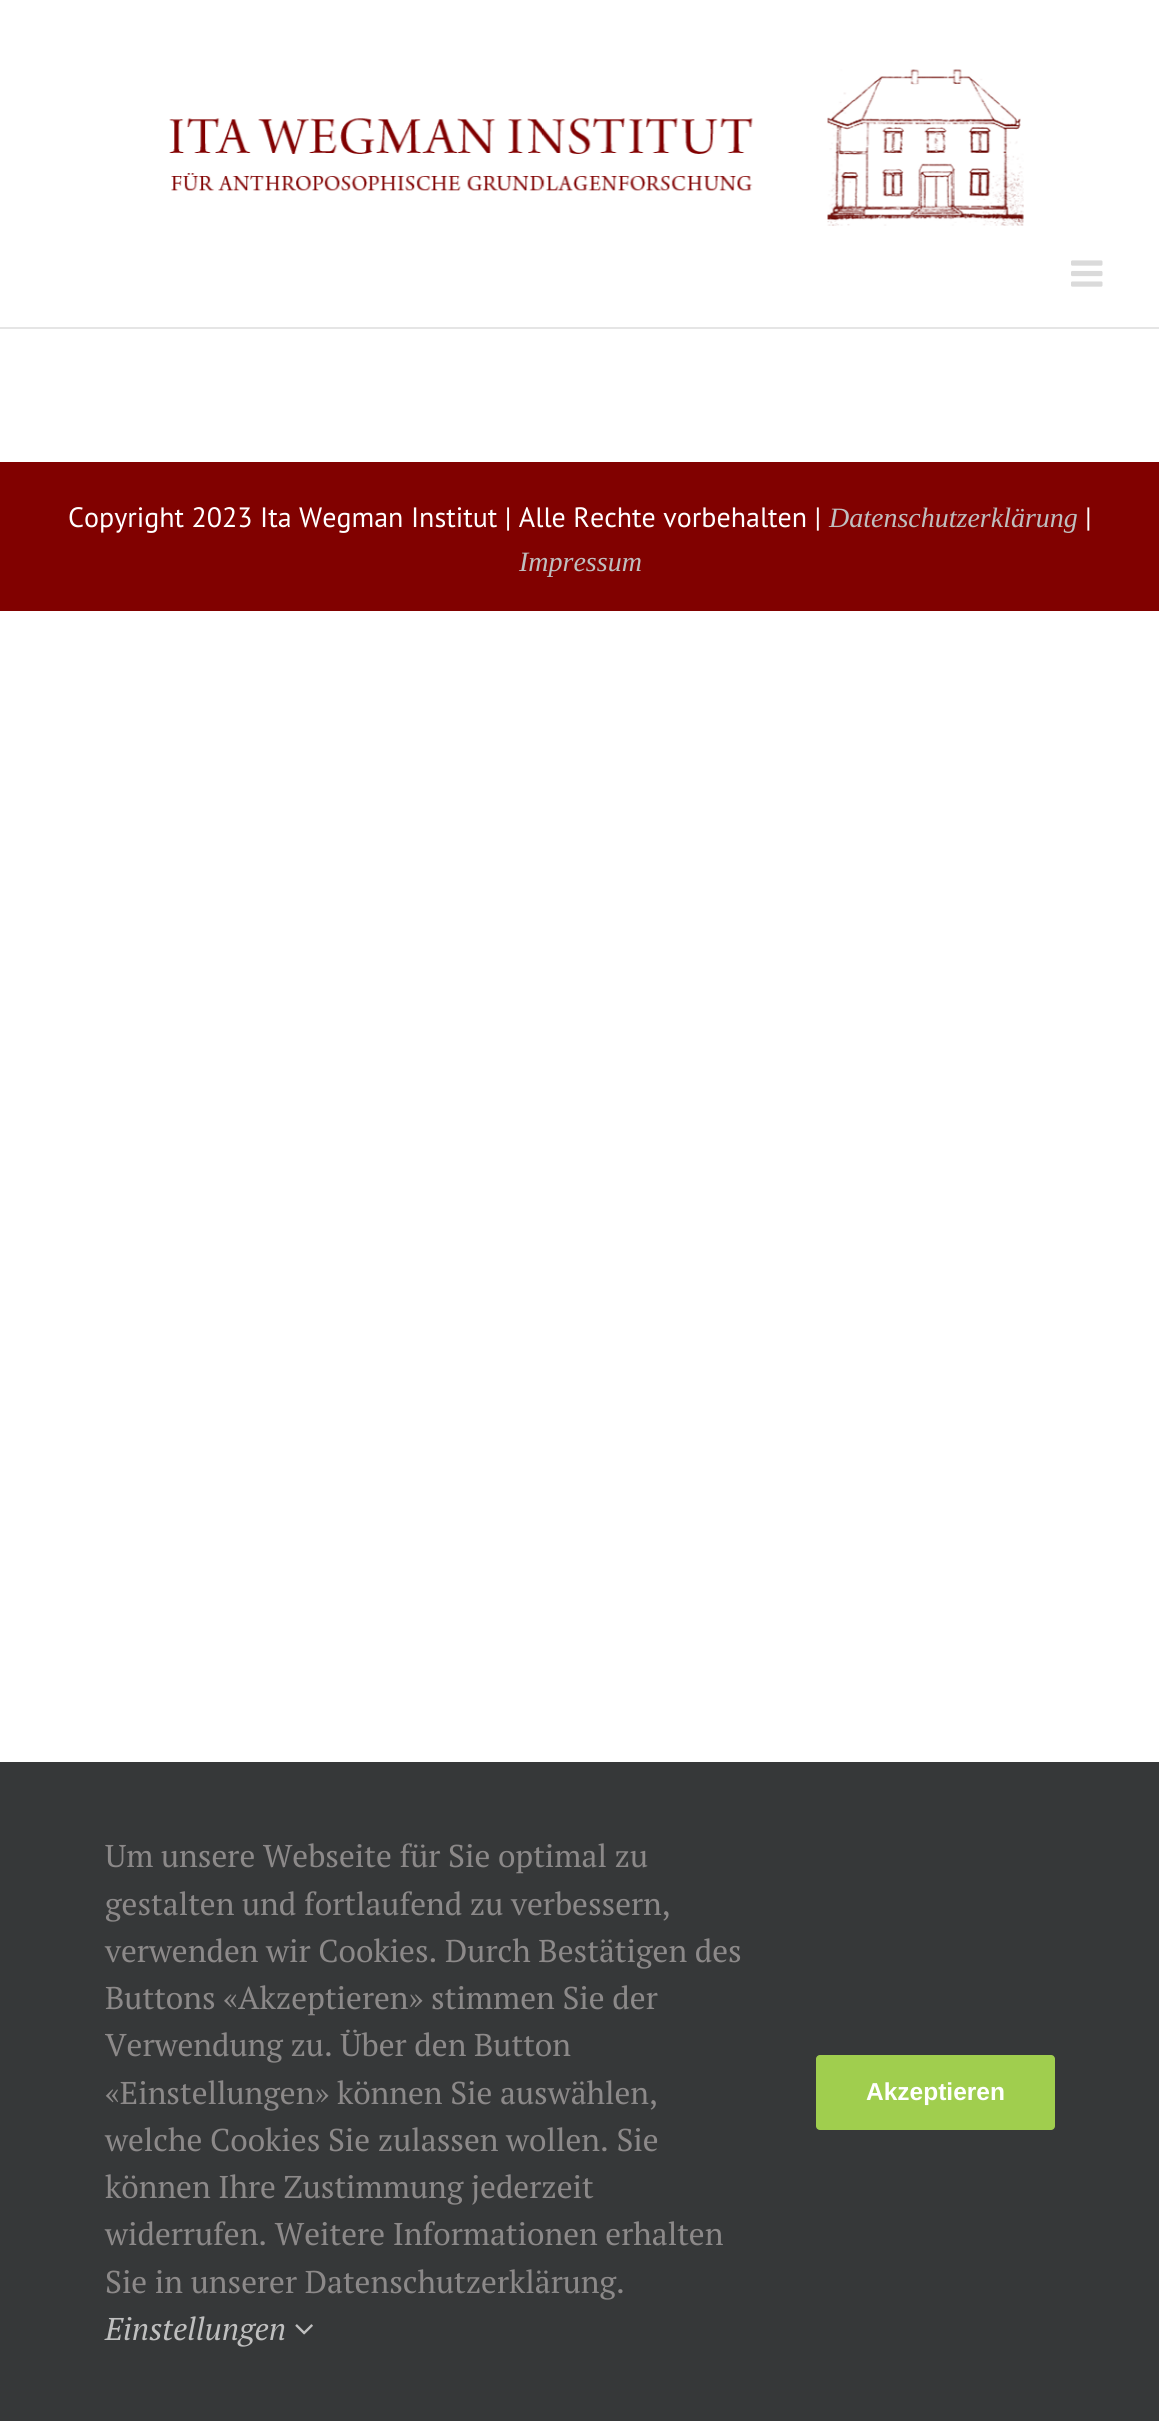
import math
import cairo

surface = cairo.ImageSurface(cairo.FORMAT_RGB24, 1159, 2421)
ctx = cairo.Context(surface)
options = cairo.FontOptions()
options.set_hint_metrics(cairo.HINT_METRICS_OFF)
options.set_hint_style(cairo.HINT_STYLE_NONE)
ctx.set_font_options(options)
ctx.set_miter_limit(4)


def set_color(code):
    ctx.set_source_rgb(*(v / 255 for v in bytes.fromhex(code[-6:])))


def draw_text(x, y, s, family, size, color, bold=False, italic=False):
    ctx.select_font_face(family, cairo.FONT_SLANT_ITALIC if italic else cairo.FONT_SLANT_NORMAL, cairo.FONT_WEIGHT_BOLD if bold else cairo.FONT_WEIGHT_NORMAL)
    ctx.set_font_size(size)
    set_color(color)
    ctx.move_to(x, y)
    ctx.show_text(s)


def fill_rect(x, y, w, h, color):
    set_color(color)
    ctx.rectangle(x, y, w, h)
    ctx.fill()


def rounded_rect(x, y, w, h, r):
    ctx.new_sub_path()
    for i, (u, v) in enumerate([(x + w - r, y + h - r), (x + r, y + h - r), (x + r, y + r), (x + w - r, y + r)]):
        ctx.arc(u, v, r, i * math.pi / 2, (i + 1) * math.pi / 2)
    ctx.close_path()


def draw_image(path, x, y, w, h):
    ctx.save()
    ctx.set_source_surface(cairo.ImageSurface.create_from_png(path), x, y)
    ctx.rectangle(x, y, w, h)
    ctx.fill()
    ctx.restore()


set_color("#ffffff")
ctx.paint()
fill_rect(0, 327, 1159, 2, "#e5e5e5")
draw_image("assets/img1.png", 169, 69, 855, 157)
draw_image("assets/img2.png", 1071, 260, 32, 27)
fill_rect(0, 462, 1159, 149, "#810100")
draw_text(68, 527, "Copyright 2023 Ita Wegman Institut | Alle Rechte vorbehalten |", "PT Sans", 28, "#ffffff")
draw_text(829, 527, "Datenschutzerklärung", "Liberation Serif", 28, "#bfbfbf", italic=True)
draw_text(1085, 527, "|", "PT Sans", 28, "#ffffff")
draw_text(519, 571, "Impressum", "Liberation Serif", 28, "#bfbfbf", italic=True)
fill_rect(0, 1762, 1159, 659, "#363839")
draw_text(105, 1867, "Um unsere Webseite für Sie optimal zu", "PT Serif", 31.5, "#8c8989")
draw_text(105, 1915, "gestalten und fortlaufend zu verbessern,", "PT Serif", 31.5, "#8c8989")
draw_text(105, 1962, "verwenden wir Cookies. Durch Bestätigen des", "PT Serif", 31.5, "#8c8989")
draw_text(105, 2009, "Buttons «Akzeptieren» stimmen Sie der", "PT Serif", 31.5, "#8c8989")
draw_text(105, 2056, "Verwendung zu. Über den Button", "PT Serif", 31.5, "#8c8989")
draw_text(105, 2104, "«Einstellungen» können Sie auswählen,", "PT Serif", 31.5, "#8c8989")
draw_text(105, 2151, "welche Cookies Sie zulassen wollen. Sie", "PT Serif", 31.5, "#8c8989")
draw_text(105, 2198, "können Ihre Zustimmung jederzeit", "PT Serif", 31.5, "#8c8989")
draw_text(105, 2245, "widerrufen. Weitere Informationen erhalten", "PT Serif", 31.5, "#8c8989")
draw_text(105, 2293, "Sie in unserer Datenschutzerklärung.", "PT Serif", 31.5, "#8c8989")
draw_text(105, 2340, "Einstellungen", "PT Serif", 31.5, "#bfbfbf", italic=True)
draw_image("assets/img3.png", 295, 2324, 18, 11)
set_color("#a0ce4e")
rounded_rect(816, 2055, 239, 75, 4)
ctx.fill()
draw_text(866, 2100, "Akzeptieren", "Liberation Sans", 24.5, "#ffffff", bold=True)
surface.write_to_png("output.png")
